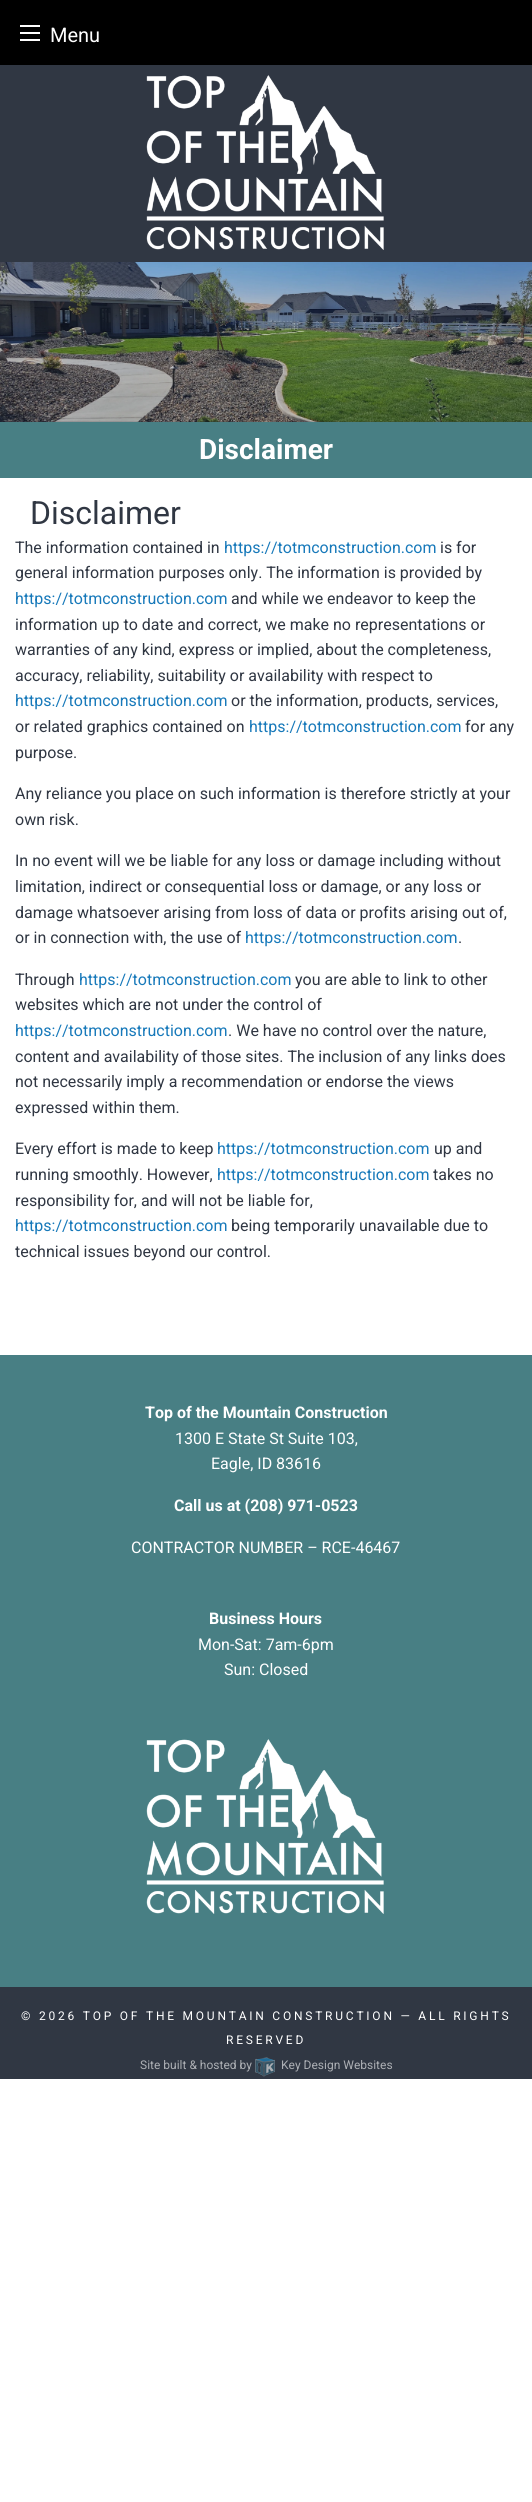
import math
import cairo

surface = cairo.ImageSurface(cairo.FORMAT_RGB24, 532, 2502)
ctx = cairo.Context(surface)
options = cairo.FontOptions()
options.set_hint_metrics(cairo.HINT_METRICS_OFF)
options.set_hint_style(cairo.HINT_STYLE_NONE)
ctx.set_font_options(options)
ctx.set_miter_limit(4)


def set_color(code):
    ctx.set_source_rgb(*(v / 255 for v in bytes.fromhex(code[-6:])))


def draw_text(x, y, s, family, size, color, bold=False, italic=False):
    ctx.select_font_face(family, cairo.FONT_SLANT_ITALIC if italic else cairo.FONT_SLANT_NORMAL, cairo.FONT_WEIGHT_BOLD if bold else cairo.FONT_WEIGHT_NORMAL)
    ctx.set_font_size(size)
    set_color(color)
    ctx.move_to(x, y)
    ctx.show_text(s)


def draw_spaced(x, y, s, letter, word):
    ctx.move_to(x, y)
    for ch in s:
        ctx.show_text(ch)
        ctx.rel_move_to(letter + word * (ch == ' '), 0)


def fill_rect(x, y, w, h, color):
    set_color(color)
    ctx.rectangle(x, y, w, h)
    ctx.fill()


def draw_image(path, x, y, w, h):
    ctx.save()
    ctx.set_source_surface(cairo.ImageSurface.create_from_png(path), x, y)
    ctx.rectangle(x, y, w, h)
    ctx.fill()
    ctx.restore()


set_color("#ffffff")
ctx.paint()
fill_rect(0, 0, 532, 65, "#000000")
fill_rect(20, 39, 20, 2, "#fefefe")
fill_rect(20, 32, 20, 2, "#fefefe")
fill_rect(20, 25, 20, 2, "#fefefe")
draw_text(50, 42, "Menu", "Roboto", 20, "#ffffff")
fill_rect(0, 65, 532, 357, "#303743")
draw_image("assets/img1.png", 146, 75, 238, 175)
draw_image("assets/img2.png", 0, 262, 532, 160)
fill_rect(0, 422, 532, 56, "#487f84")
draw_text(199, 459, "Disclaimer", "Roboto", 28, "#ffffff", bold=True)
draw_text(30, 524, "Disclaimer", "Roboto", 32, "#303743")
draw_text(15, 553, "The information contained in", "Roboto", 16, "#303743")
draw_text(224, 553, "https://totmconstruction.com", "Roboto", 16, "#1779ba")
draw_text(440, 553, "is for", "Roboto", 16, "#303743")
draw_text(15, 578, "general information purposes only. The information is provided by", "Roboto", 16, "#303743")
draw_text(15, 604, "https://totmconstruction.com", "Roboto", 16, "#1779ba")
draw_text(231, 604, "and while we endeavor to keep the", "Roboto", 16, "#303743")
draw_text(15, 630, "information up to date and correct, we make no representations or", "Roboto", 16, "#303743")
draw_text(15, 655, "warranties of any kind, express or implied, about the completeness,", "Roboto", 16, "#303743")
draw_text(15, 681, "accuracy, reliability, suitability or availability with respect to", "Roboto", 16, "#303743")
draw_text(15, 706, "https://totmconstruction.com", "Roboto", 16, "#1779ba")
draw_text(231, 706, "or the information, products, services,", "Roboto", 16, "#303743")
draw_text(15, 732, "or related graphics contained on", "Roboto", 16, "#303743")
draw_text(249, 732, "https://totmconstruction.com", "Roboto", 16, "#1779ba")
draw_text(465, 732, "for any", "Roboto", 16, "#303743")
draw_text(15, 758, "purpose.", "Roboto", 16, "#303743")
draw_text(15, 799, "Any reliance you place on such information is therefore strictly at your", "Roboto", 16, "#303743")
draw_text(15, 825, "own risk.", "Roboto", 16, "#303743")
draw_text(15, 866, "In no event will we be liable for any loss or damage including without", "Roboto", 16, "#303743")
draw_text(15, 892, "limitation, indirect or consequential loss or damage, or any loss or", "Roboto", 16, "#303743")
draw_text(15, 918, "damage whatsoever arising from loss of data or profits arising out of,", "Roboto", 16, "#303743")
draw_text(15, 943, "or in connection with, the use of", "Roboto", 16, "#303743")
draw_text(245, 943, "https://totmconstruction.com", "Roboto", 16, "#1779ba")
draw_text(458, 943, ".", "Roboto", 16, "#303743")
draw_text(15, 985, "Through", "Roboto", 16, "#303743")
draw_text(79, 985, "https://totmconstruction.com", "Roboto", 16, "#1779ba")
draw_text(295, 985, "you are able to link to other", "Roboto", 16, "#303743")
draw_text(15, 1010, "websites which are not under the control of", "Roboto", 16, "#303743")
draw_text(15, 1036, "https://totmconstruction.com", "Roboto", 16, "#1779ba")
draw_text(228, 1036, ". We have no control over the nature,", "Roboto", 16, "#303743")
draw_text(15, 1062, "content and availability of those sites. The inclusion of any links does", "Roboto", 16, "#303743")
draw_text(15, 1087, "not necessarily imply a recommendation or endorse the views", "Roboto", 16, "#303743")
draw_text(15, 1113, "expressed within them.", "Roboto", 16, "#303743")
draw_text(15, 1154, "Every effort is made to keep", "Roboto", 16, "#303743")
draw_text(217, 1154, "https://totmconstruction.com", "Roboto", 16, "#1779ba")
draw_text(434, 1154, "up and", "Roboto", 16, "#303743")
draw_text(15, 1180, "running smoothly. However,", "Roboto", 16, "#303743")
draw_text(217, 1180, "https://totmconstruction.com", "Roboto", 16, "#1779ba")
draw_text(433, 1180, "takes no", "Roboto", 16, "#303743")
draw_text(15, 1206, "responsibility for, and will not be liable for,", "Roboto", 16, "#303743")
draw_text(15, 1231, "https://totmconstruction.com", "Roboto", 16, "#1779ba")
draw_text(231, 1231, "being temporarily unavailable due to", "Roboto", 16, "#303743")
draw_text(15, 1257, "technical issues beyond our control.", "Roboto", 16, "#303743")
fill_rect(0, 1355, 532, 632, "#487f84")
draw_text(145, 1418, "Top of the Mountain Construction", "Roboto", 16, "#ffffff", bold=True)
draw_text(175, 1444, "1300 E State St Suite 103,", "Roboto", 16, "#ffffff")
draw_text(211, 1469, "Eagle, ID 83616", "Roboto", 16, "#ffffff")
draw_text(174, 1511, "Call us at (208) 971-0523", "Roboto", 16, "#ffffff", bold=True)
draw_text(131, 1553, "CONTRACTOR NUMBER – RCE-46467", "Roboto", 16, "#ffffff")
draw_text(209, 1624, "Business Hours", "Roboto", 16, "#ffffff", bold=True)
draw_text(198, 1650, "Mon-Sat: 7am-6pm", "Roboto", 16, "#ffffff")
draw_text(224, 1675, "Sun: Closed", "Roboto", 16, "#ffffff")
draw_image("assets/img3.png", 146, 1739, 238, 175)
fill_rect(0, 1987, 532, 92, "#303743")
ctx.set_font_size(12)
set_color("#ffffff")
draw_spaced(21, 2020, "© 2026 TOP OF THE MOUNTAIN CONSTRUCTION — ALL RIGHTS", 2.77, 0)
draw_spaced(226, 2044, "RESERVED", 2.77, 0)
draw_text(140, 2069, "Site built & hosted by", "Roboto", 12, "#acafb4")
draw_image("assets/img4.png", 255, 2057, 20, 20)
draw_text(281, 2069, "Key Design Websites", "Roboto", 12, "#acafb4")
surface.write_to_png("output.png")
